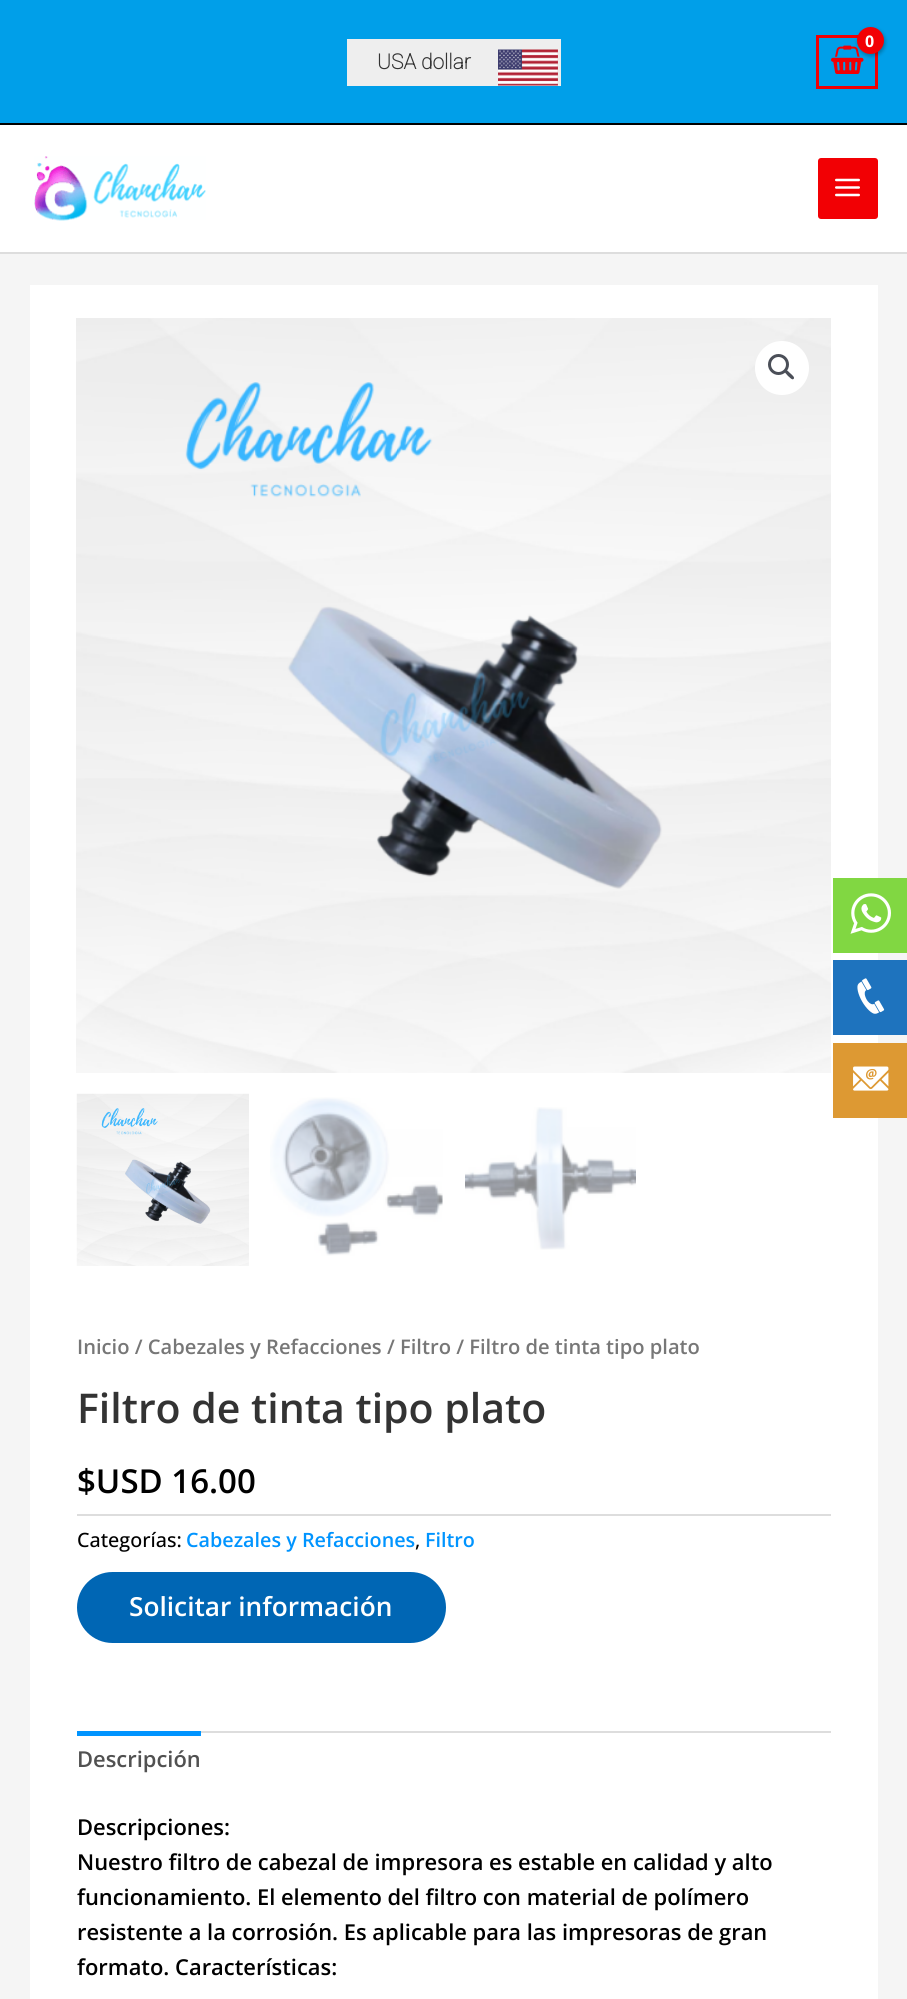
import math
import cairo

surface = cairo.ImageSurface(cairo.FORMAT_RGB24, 907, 1999)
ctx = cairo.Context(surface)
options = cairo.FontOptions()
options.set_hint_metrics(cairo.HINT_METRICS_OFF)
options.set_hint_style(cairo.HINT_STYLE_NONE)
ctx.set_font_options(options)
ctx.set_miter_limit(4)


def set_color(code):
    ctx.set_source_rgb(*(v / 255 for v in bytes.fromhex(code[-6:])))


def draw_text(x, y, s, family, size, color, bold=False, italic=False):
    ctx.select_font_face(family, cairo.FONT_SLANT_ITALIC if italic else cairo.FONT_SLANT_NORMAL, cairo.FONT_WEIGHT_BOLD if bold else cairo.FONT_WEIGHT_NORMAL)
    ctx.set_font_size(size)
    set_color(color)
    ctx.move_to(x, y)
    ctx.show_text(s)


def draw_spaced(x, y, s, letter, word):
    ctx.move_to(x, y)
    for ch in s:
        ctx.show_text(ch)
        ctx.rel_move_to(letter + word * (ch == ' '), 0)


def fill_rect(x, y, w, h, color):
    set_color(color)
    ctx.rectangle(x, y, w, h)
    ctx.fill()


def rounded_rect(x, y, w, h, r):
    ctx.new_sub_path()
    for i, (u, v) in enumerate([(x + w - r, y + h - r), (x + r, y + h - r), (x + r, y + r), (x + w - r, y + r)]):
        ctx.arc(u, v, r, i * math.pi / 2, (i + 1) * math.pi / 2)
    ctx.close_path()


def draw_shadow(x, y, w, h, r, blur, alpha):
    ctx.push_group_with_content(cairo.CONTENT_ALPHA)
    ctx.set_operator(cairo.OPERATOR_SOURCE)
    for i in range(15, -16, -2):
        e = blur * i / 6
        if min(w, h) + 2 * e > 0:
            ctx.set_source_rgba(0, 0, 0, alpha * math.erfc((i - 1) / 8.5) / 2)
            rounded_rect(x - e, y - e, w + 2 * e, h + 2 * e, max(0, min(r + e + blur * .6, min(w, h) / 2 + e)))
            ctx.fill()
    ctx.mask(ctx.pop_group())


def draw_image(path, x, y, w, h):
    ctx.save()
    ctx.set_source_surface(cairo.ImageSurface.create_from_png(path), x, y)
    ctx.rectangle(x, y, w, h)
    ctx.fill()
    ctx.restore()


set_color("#f5f5f5")
ctx.paint()
fill_rect(0, 0, 907, 123, "#009fe9")
fill_rect(0, 123, 907, 2, "#000000")
ctx.rectangle(817.5, 36.5, 59, 51)
set_color("#f20004")
ctx.set_line_width(3)
ctx.stroke()
draw_image("assets/img1.png", 831, 45, 33, 29)
set_color("#000000")
draw_shadow(858, 29, 27, 27, 13.5, 2, 0.3)
set_color("#f20004")
ctx.arc(870.5, 40.5, 13.5, 0, 2 * math.pi)
ctx.fill()
ctx.select_font_face("Open Sans", cairo.FONT_SLANT_NORMAL, cairo.FONT_WEIGHT_BOLD)
ctx.set_font_size(16)
set_color("#ffffff")
draw_spaced(865, 47, "0", -1, 0)
fill_rect(347, 39, 214, 47, "#eeeeee")
draw_image("assets/img2.png", 498, 49, 60, 37)
draw_text(377, 69, "USA dollar", "Roboto", 21, "#333333", bold=True)
fill_rect(0, 125, 907, 127, "#ffffff")
fill_rect(0, 252, 907, 2, "#dddddd")
draw_image("assets/img3.png", 34, 156, 172, 65)
set_color("#f20004")
rounded_rect(818, 158, 60, 61, 3)
ctx.fill()
draw_image("assets/img4.png", 835, 178, 25, 19)
fill_rect(30, 285, 848, 1714, "#ffffff")
draw_image("assets/img5.png", 76, 318, 755, 755)
ctx.arc(782, 368, 27, 0, 2 * math.pi)
ctx.fill()
ctx.arc(778.5, 364.5, 9, 0, 2 * math.pi)
set_color("#4b4f58")
ctx.stroke()
ctx.new_path()
ctx.move_to(785, 370.5)
ctx.curve_to(787, 369, 789.5, 373, 790.5, 373.5)
ctx.curve_to(791.5, 374.5, 795.5, 377.5, 793.5, 379)
ctx.curve_to(792, 380.5, 789, 376.5, 788, 376)
ctx.curve_to(787.5, 375, 783.5, 372, 785, 370.5)
ctx.close_path()
ctx.fill()
draw_image("assets/img6.png", 76, 1093, 173, 173)
draw_image("assets/img7.png", 270, 1097, 173, 159)
draw_image("assets/img8.png", 465, 1107, 171, 143)
draw_text(77, 1354, "Inicio / Cabezales y Refacciones / Filtro / Filtro de tinta tipo plato", "Open Sans SemiBold", 20.15, "#777777")
draw_text(77, 1423, "Filtro de tinta tipo plato", "Open Sans SemiBold", 41, "#333333")
draw_text(77, 1493, "$USD 16.00", "Open Sans SemiBold", 33, "#000000")
fill_rect(77, 1514, 754, 2, "#dddddd")
draw_text(77, 1547, "Categorías:", "Open Sans Medium", 19.75, "#000000")
draw_text(186, 1547, "Cabezales y Refacciones", "Open Sans SemiBold", 19.75, "#0094ff")
draw_text(415, 1547, ",", "Open Sans Medium", 19.75, "#000000")
draw_text(425, 1547, "Filtro", "Open Sans SemiBold", 19.75, "#0094ff")
set_color("#0066b4")
rounded_rect(77, 1572, 369, 71, 35.5)
ctx.fill()
draw_text(129, 1616, "Solicitar información", "Open Sans SemiBold", 26.25, "#ffffff")
fill_rect(201, 1731, 630, 2, "#dddddd")
fill_rect(77, 1731, 124, 5, "#0094ff")
draw_text(77, 1767, "Descripción", "Open Sans SemiBold", 21.9, "#515151")
draw_text(77, 1835, "Descripciones:", "Open Sans SemiBold", 21.9, "#000000")
draw_text(77, 1870, "Nuestro filtro de cabezal de impresora es estable en calidad y alto", "Open Sans SemiBold", 21.9, "#000000")
draw_text(77, 1905, "funcionamiento. El elemento del filtro con material de polímero", "Open Sans SemiBold", 21.9, "#000000")
draw_text(77, 1940, "resistente a la corrosión. Es aplicable para las impresoras de gran", "Open Sans SemiBold", 21.9, "#000000")
draw_text(77, 1975, "formato. Características:", "Open Sans SemiBold", 21.9, "#000000")
fill_rect(833, 878, 74, 75, "#81d742")
draw_image("assets/img9.png", 850, 893, 41, 41)
fill_rect(833, 960, 74, 75, "#1e73be")
draw_image("assets/img10.png", 857, 978, 28, 36)
fill_rect(833, 1043, 74, 75, "#dd9933")
draw_image("assets/img11.png", 853, 1066, 36, 25)
surface.write_to_png("output.png")
